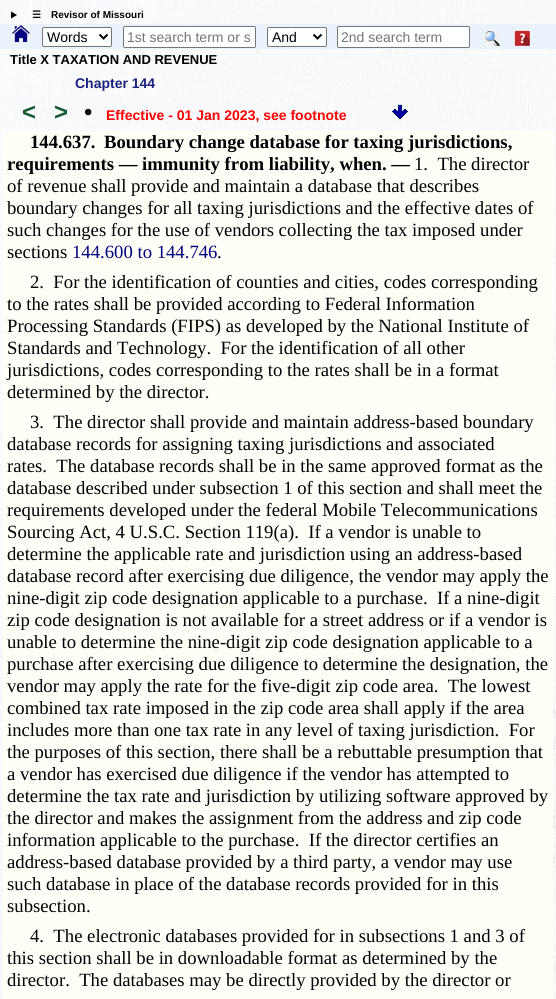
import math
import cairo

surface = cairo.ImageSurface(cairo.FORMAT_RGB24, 556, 999)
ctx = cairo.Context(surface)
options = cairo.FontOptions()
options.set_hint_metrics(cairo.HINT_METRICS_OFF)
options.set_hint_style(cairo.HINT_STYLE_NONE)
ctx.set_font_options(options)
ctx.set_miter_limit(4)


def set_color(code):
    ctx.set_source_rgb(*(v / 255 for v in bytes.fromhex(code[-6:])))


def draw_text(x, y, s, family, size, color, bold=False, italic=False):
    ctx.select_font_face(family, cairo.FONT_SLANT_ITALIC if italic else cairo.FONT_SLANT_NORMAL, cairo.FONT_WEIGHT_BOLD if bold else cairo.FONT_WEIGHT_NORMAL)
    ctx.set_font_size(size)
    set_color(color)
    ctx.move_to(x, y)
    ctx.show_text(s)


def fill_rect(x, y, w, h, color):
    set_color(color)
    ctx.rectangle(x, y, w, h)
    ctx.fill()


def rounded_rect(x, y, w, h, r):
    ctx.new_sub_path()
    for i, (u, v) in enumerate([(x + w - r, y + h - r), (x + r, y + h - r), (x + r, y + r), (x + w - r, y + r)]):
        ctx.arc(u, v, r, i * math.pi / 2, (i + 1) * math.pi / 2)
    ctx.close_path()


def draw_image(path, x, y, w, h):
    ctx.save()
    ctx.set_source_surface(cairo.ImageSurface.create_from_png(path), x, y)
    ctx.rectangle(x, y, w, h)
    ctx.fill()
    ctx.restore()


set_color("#ffffff")
ctx.paint()
draw_image("assets/img1.png", 0, 0, 556, 999)
set_color("#000000")
ctx.new_path()
ctx.move_to(11, 11.5)
ctx.line_to(17, 15)
ctx.line_to(11, 18.5)
ctx.close_path()
ctx.fill()
draw_text(32, 18, "☰", "DejaVu Sans", 10, "#000000", bold=True)
draw_text(51, 18, "Revisor of Missouri", "Liberation Sans", 10, "#000000", bold=True)
fill_rect(0, 24, 556, 25, "#eaf3fb")
draw_image("assets/img2.png", 12, 25, 18, 17)
set_color("#ffffff")
rounded_rect(42.5, 27.5, 69, 19, 1.5)
ctx.fill_preserve()
set_color("#767676")
ctx.set_line_width(1)
ctx.stroke()
ctx.new_path()
ctx.move_to(99.5, 34.5)
ctx.line_to(103.5, 38.5)
ctx.line_to(107.5, 34.5)
set_color("#000000")
ctx.set_line_width(2)
ctx.stroke()
draw_text(47, 42, "Words", "Liberation Sans", 14, "#000000")
set_color("#ffffff")
rounded_rect(123.5, 26.5, 132, 21, 1.5)
ctx.fill_preserve()
set_color("#767676")
ctx.set_line_width(1)
ctx.stroke()
draw_text(127, 42, "1st search term or s", "Liberation Sans", 14, "#757575")
set_color("#ffffff")
rounded_rect(267.5, 27.5, 59, 19, 1.5)
ctx.fill_preserve()
set_color("#767676")
ctx.stroke()
ctx.new_path()
ctx.move_to(313.5, 34.5)
ctx.line_to(317.5, 38.5)
ctx.line_to(321.5, 34.5)
set_color("#000000")
ctx.set_line_width(2)
ctx.stroke()
draw_text(272, 42, "And", "Liberation Sans", 14, "#000000")
set_color("#ffffff")
rounded_rect(337.5, 26.5, 132, 21, 1.5)
ctx.fill_preserve()
set_color("#767676")
ctx.set_line_width(1)
ctx.stroke()
draw_text(341, 42, "2nd search term", "Liberation Sans", 14, "#757575")
draw_image("assets/img3.png", 484, 30, 16, 16)
draw_image("assets/img4.png", 514, 30, 16, 16)
draw_text(10, 64, "Title X TAXATION AND REVENUE", "Liberation Sans", 13, "#000000", bold=True)
draw_text(75, 88, "Chapter 144", "Liberation Sans", 14, "#1a237e", bold=True)
draw_text(22, 120, "<", "Liberation Sans", 24, "#145a32", bold=True)
draw_text(54, 120, ">", "Liberation Sans", 24, "#145a32", bold=True)
draw_text(84, 120, "•", "Liberation Sans", 24, "#000000")
draw_text(106, 120, "Effective - 01 Jan 2023, see footnote", "Liberation Sans", 14, "#ff0000", bold=True)
draw_image("assets/img5.png", 392, 104, 16, 16)
fill_rect(3, 131, 550, 868, "#fffff7")
draw_text(30, 148, "144.637.", "Liberation Serif", 18.7, "#000000", bold=True)
draw_text(104, 148, "Boundary change database for taxing jurisdictions,", "Liberation Serif", 18.7, "#000000", bold=True)
draw_text(7, 170, "requirements — immunity from liability, when. —", "Liberation Serif", 18.7, "#000000", bold=True)
draw_text(414, 170, "1.  The director", "Liberation Serif", 18.7, "#000000")
draw_text(7, 192, "of revenue shall provide and maintain a database that describes", "Liberation Serif", 18.7, "#000000")
draw_text(7, 214, "boundary changes for all taxing jurisdictions and the effective dates of", "Liberation Serif", 18.7, "#000000")
draw_text(7, 236, "such changes for the use of vendors collecting the tax imposed under", "Liberation Serif", 18.7, "#000000")
draw_text(7, 258, "sections", "Liberation Serif", 18.7, "#000000")
draw_text(72, 258, "144.600 to 144.746", "Liberation Serif", 18.7, "#000080")
draw_text(217, 258, ".", "Liberation Serif", 18.7, "#000000")
draw_text(30, 288, "2.  For the identification of counties and cities, codes corresponding", "Liberation Serif", 18.7, "#000000")
draw_text(7, 310, "to the rates shall be provided according to Federal Information", "Liberation Serif", 18.7, "#000000")
draw_text(7, 332, "Processing Standards (FIPS) as developed by the National Institute of", "Liberation Serif", 18.7, "#000000")
draw_text(7, 354, "Standards and Technology.  For the identification of all other", "Liberation Serif", 18.7, "#000000")
draw_text(7, 376, "jurisdictions, codes corresponding to the rates shall be in a format", "Liberation Serif", 18.7, "#000000")
draw_text(7, 398, "determined by the director.", "Liberation Serif", 18.7, "#000000")
draw_text(30, 428, "3.  The director shall provide and maintain address-based boundary", "Liberation Serif", 18.7, "#000000")
draw_text(7, 450, "database records for assigning taxing jurisdictions and associated", "Liberation Serif", 18.7, "#000000")
draw_text(7, 472, "rates.  The database records shall be in the same approved format as the", "Liberation Serif", 18.7, "#000000")
draw_text(7, 494, "database described under subsection 1 of this section and shall meet the", "Liberation Serif", 18.7, "#000000")
draw_text(7, 516, "requirements developed under the federal Mobile Telecommunications", "Liberation Serif", 18.7, "#000000")
draw_text(7, 538, "Sourcing Act, 4 U.S.C. Section 119(a).  If a vendor is unable to", "Liberation Serif", 18.7, "#000000")
draw_text(7, 560, "determine the applicable rate and jurisdiction using an address-based", "Liberation Serif", 18.7, "#000000")
draw_text(7, 582, "database record after exercising due diligence, the vendor may apply the", "Liberation Serif", 18.7, "#000000")
draw_text(7, 604, "nine-digit zip code designation applicable to a purchase.  If a nine-digit", "Liberation Serif", 18.7, "#000000")
draw_text(7, 626, "zip code designation is not available for a street address or if a vendor is", "Liberation Serif", 18.7, "#000000")
draw_text(7, 648, "unable to determine the nine-digit zip code designation applicable to a", "Liberation Serif", 18.7, "#000000")
draw_text(7, 670, "purchase after exercising due diligence to determine the designation, the", "Liberation Serif", 18.7, "#000000")
draw_text(7, 692, "vendor may apply the rate for the five-digit zip code area.  The lowest", "Liberation Serif", 18.7, "#000000")
draw_text(7, 714, "combined tax rate imposed in the zip code area shall apply if the area", "Liberation Serif", 18.7, "#000000")
draw_text(7, 736, "includes more than one tax rate in any level of taxing jurisdiction.  For", "Liberation Serif", 18.7, "#000000")
draw_text(7, 758, "the purposes of this section, there shall be a rebuttable presumption that", "Liberation Serif", 18.7, "#000000")
draw_text(7, 780, "a vendor has exercised due diligence if the vendor has attempted to", "Liberation Serif", 18.7, "#000000")
draw_text(7, 802, "determine the tax rate and jurisdiction by utilizing software approved by", "Liberation Serif", 18.7, "#000000")
draw_text(7, 824, "the director and makes the assignment from the address and zip code", "Liberation Serif", 18.7, "#000000")
draw_text(7, 846, "information applicable to the purchase.  If the director certifies an", "Liberation Serif", 18.7, "#000000")
draw_text(7, 868, "address-based database provided by a third party, a vendor may use", "Liberation Serif", 18.7, "#000000")
draw_text(7, 890, "such database in place of the database records provided for in this", "Liberation Serif", 18.7, "#000000")
draw_text(7, 912, "subsection.", "Liberation Serif", 18.7, "#000000")
draw_text(30, 942, "4.  The electronic databases provided for in subsections 1 and 3 of", "Liberation Serif", 18.7, "#000000")
draw_text(7, 964, "this section shall be in downloadable format as determined by the", "Liberation Serif", 18.7, "#000000")
draw_text(7, 986, "director.  The databases may be directly provided by the director or", "Liberation Serif", 18.7, "#000000")
surface.write_to_png("output.png")
